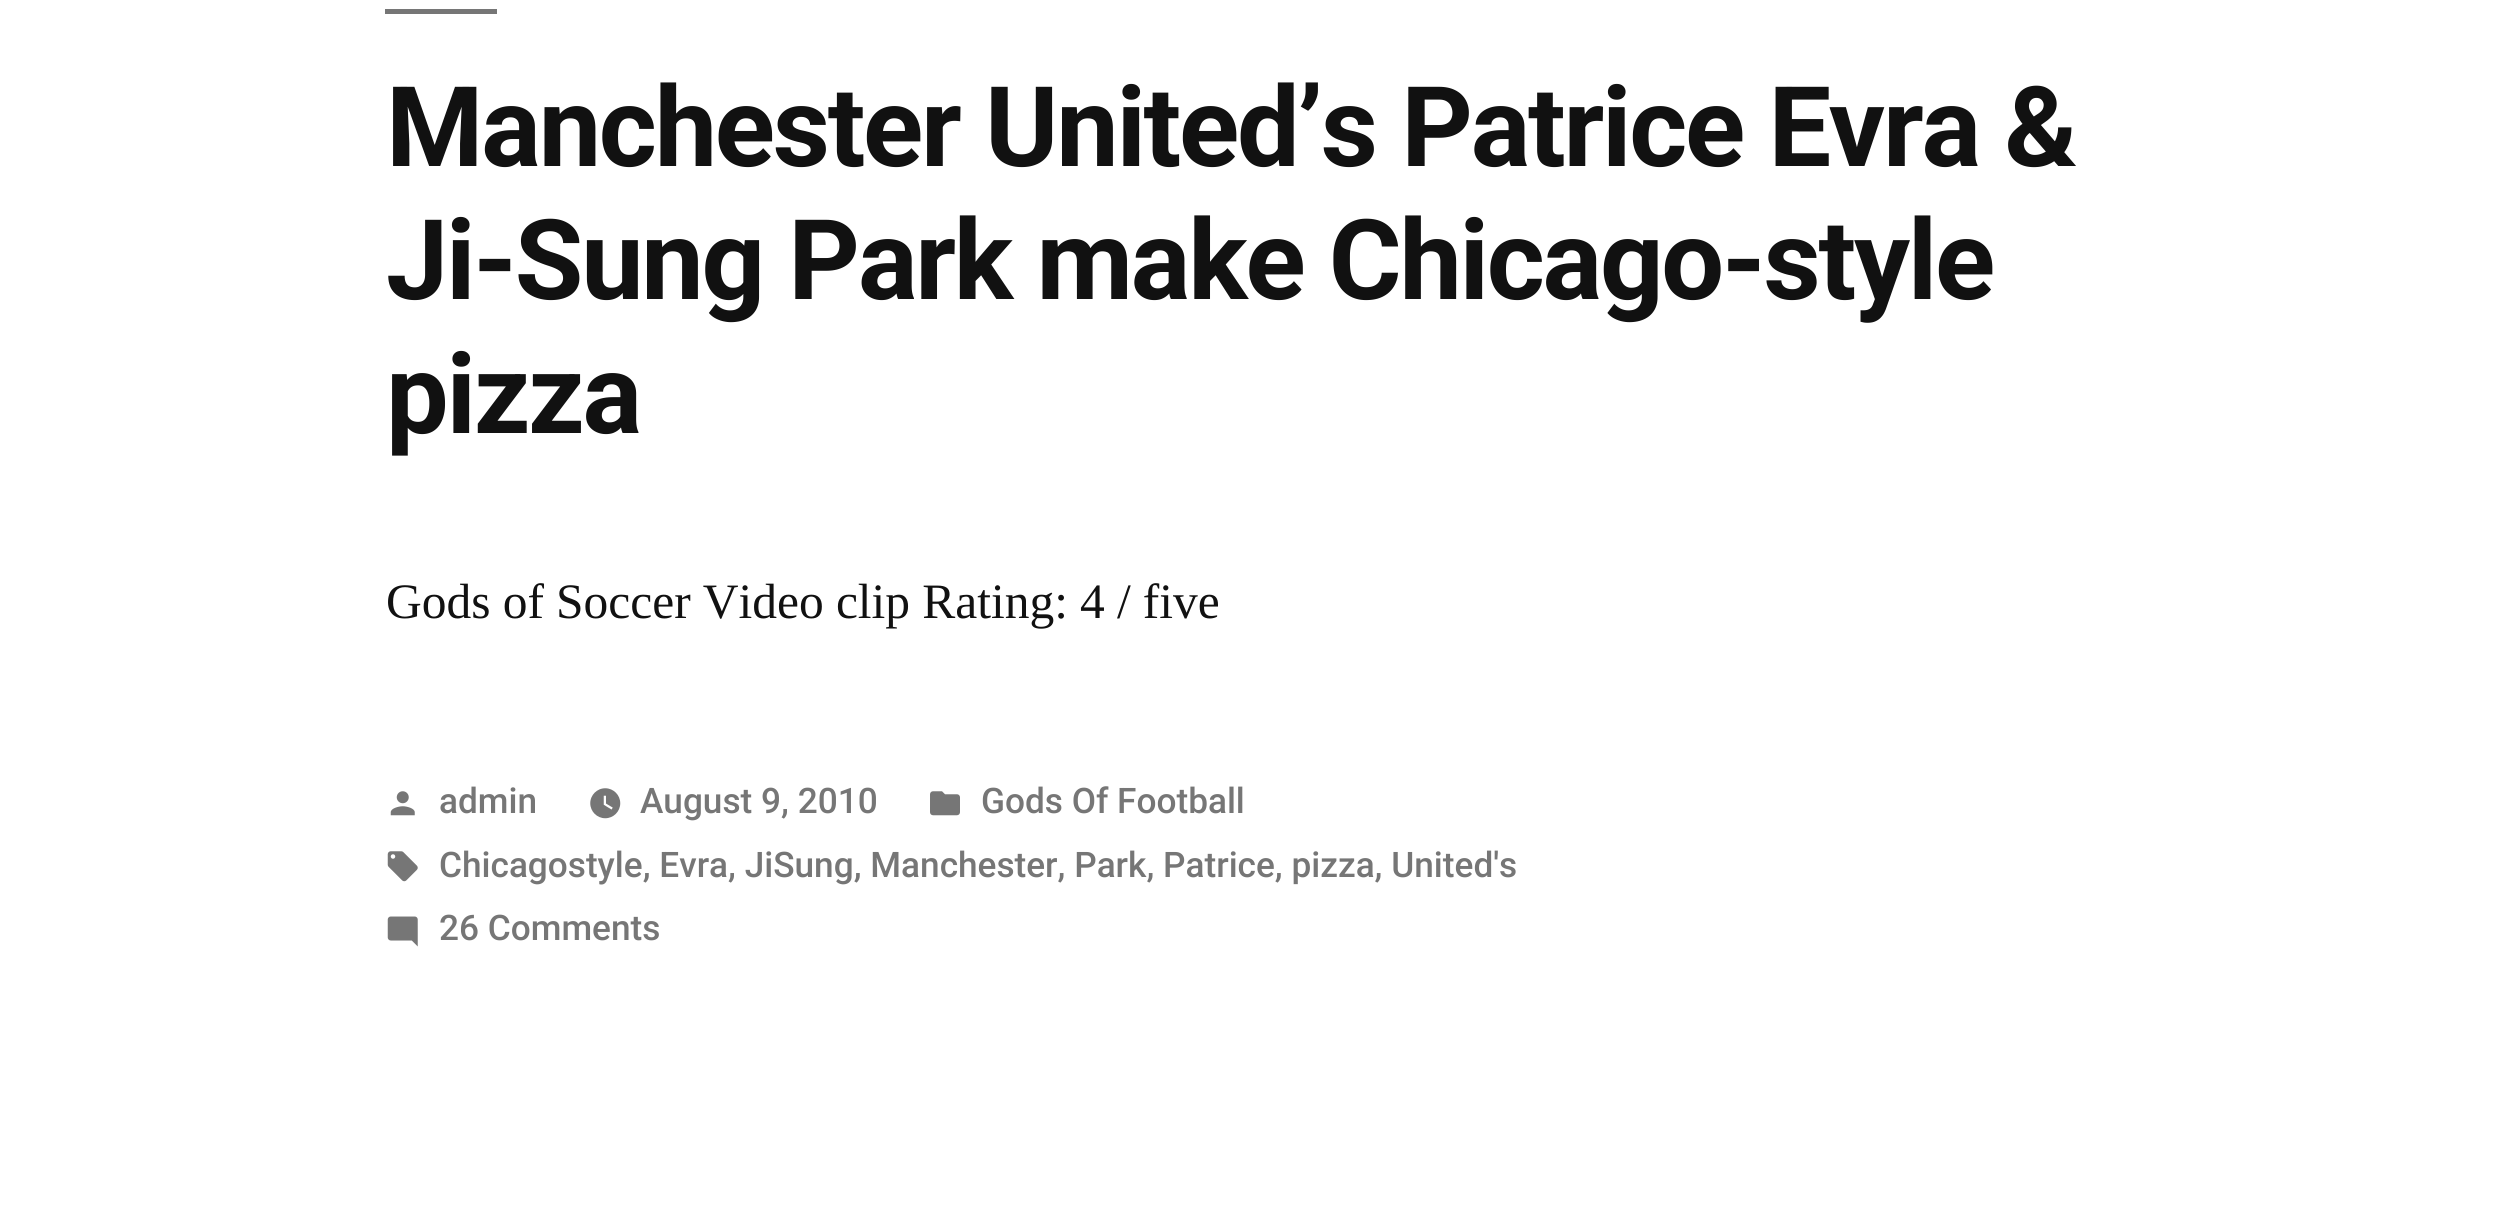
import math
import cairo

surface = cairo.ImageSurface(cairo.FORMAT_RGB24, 2506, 1207)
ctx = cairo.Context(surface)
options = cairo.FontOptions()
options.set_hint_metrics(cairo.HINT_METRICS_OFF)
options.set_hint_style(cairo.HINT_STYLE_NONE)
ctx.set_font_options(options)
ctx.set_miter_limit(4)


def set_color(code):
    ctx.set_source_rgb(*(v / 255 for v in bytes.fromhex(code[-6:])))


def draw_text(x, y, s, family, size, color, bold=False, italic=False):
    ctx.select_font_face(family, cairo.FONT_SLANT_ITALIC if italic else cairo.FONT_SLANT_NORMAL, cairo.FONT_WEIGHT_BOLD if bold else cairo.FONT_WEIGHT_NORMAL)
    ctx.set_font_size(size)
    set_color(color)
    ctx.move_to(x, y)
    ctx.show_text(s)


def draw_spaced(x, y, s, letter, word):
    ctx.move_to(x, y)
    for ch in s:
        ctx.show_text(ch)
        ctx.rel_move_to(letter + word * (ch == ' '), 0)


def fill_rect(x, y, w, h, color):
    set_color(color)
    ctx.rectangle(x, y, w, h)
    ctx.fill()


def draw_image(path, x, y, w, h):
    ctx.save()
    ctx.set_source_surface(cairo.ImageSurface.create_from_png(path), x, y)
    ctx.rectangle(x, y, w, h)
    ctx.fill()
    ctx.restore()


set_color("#ffffff")
ctx.paint()
fill_rect(385, 9, 112, 5, "#767676")
ctx.select_font_face("Roboto", cairo.FONT_SLANT_NORMAL, cairo.FONT_WEIGHT_BOLD)
ctx.set_font_size(111.4)
set_color("#111111")
draw_spaced(386, 166, "Manchester United’s Patrice Evra &", -2.25, 0)
draw_spaced(386, 299, "Ji-Sung Park make Chicago-style", -2.25, 0)
draw_spaced(386, 433, "pizza", -2.25, 0)
ctx.select_font_face("Liberation Serif")
ctx.set_font_size(49.5)
draw_spaced(386, 618, "Gods of Soccer Video clip Rating: 4 / five", 0, -0.25)
draw_image("assets/img1.png", 390, 791, 25, 25)
draw_text(439, 813, "admin", "Roboto Medium", 35.2, "#767676")
draw_image("assets/img2.png", 590, 788, 31, 31)
draw_text(640, 813, "August 9, 2010", "Roboto Medium", 35.2, "#767676")
draw_image("assets/img3.png", 930, 791, 30, 25)
draw_text(981, 813, "Gods Of Football", "Roboto Medium", 35.2, "#767676")
draw_image("assets/img4.png", 387, 851, 31, 31)
draw_text(439, 877, "Chicagostyle, Evra, JiSung, Manchester, Park, Patrice, pizza, United's", "Roboto Medium", 35.2, "#767676")
draw_image("assets/img5.png", 387, 916, 31, 31)
draw_text(439, 940, "26 Comments", "Roboto Medium", 35.2, "#767676")
surface.write_to_png("output.png")
